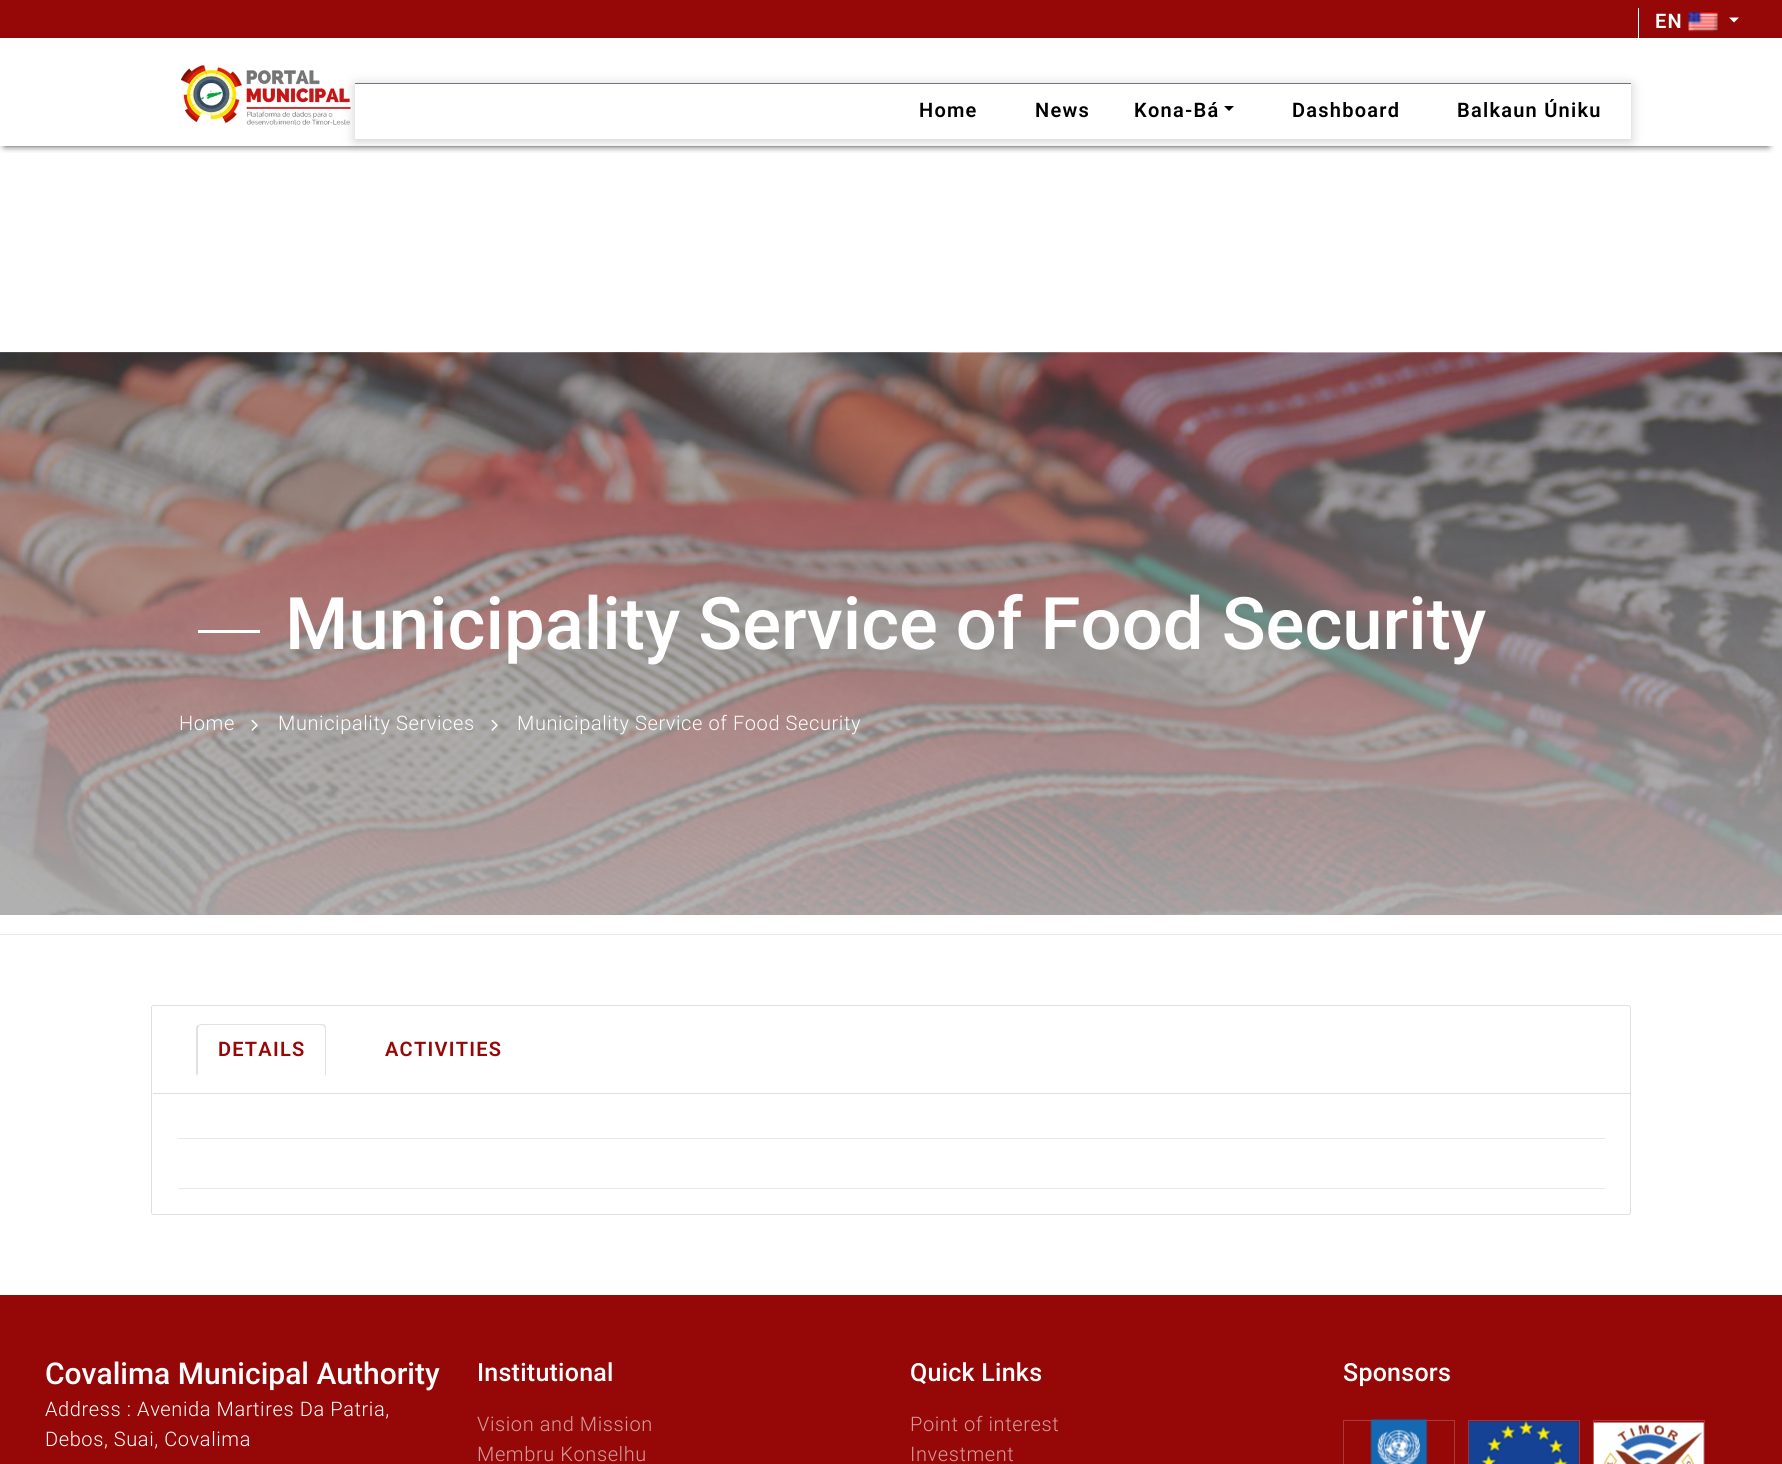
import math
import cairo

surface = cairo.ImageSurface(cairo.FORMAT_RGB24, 1782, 1464)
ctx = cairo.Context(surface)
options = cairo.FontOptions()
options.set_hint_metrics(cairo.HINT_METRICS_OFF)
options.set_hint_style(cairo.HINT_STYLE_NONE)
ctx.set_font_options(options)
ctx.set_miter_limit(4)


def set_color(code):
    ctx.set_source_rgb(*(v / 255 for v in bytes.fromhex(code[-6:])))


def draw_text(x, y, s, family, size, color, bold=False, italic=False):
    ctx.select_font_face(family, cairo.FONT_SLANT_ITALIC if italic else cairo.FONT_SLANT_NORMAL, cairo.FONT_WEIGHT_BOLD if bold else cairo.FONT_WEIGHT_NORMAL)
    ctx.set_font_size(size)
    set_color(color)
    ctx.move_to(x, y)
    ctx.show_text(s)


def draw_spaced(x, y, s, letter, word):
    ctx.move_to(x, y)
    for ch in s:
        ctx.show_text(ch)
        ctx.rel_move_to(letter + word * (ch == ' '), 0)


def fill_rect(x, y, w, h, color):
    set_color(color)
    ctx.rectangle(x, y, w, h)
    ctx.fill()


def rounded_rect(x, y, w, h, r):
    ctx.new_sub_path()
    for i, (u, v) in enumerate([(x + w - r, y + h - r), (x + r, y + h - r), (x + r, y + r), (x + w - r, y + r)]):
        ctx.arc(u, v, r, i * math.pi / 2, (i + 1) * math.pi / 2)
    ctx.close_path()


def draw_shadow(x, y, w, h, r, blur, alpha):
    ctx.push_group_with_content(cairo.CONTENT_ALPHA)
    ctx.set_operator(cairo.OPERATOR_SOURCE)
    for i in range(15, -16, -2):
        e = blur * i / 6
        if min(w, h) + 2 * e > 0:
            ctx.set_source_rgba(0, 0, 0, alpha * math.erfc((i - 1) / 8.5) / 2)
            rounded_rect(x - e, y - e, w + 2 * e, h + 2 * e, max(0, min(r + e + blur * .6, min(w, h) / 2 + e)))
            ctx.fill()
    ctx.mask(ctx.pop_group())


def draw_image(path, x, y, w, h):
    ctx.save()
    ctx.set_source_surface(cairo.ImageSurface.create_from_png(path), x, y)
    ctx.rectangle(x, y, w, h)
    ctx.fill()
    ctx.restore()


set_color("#ffffff")
ctx.paint()
fill_rect(0, 0, 1782, 38, "#960707")
fill_rect(1638, 8, 1, 32, "#ffffff")
ctx.select_font_face("Roboto SemiBold")
ctx.set_font_size(20)
draw_spaced(1655, 28, "EN", 1.25, 0)
draw_image("assets/img1.png", 1688, 12, 30, 20)
ctx.new_path()
ctx.move_to(1729, 17.5)
ctx.line_to(1739, 17.5)
ctx.line_to(1734, 22.5)
ctx.close_path()
ctx.fill()
ctx.save()
ctx.rectangle(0, 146, 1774, 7)
ctx.clip()
set_color("#040404")
draw_shadow(5, 71, 1763, 74, 0, 4, 1)
ctx.restore()
draw_image("assets/img2.png", 180, 65, 171, 60)
set_color("#000000")
draw_shadow(355, 85, 1276, 56, 0, 6, 0.2)
fill_rect(355, 84, 1276, 55, "#ffffff")
fill_rect(355, 83, 1276, 1, "#74757f")
set_color("#000000")
draw_spaced(919, 117, "Home", 1.25, 0)
draw_spaced(1035, 117, "News", 1.25, 0)
draw_spaced(1134, 117, "Kona-Bá", 1.25, 0)
ctx.new_path()
ctx.move_to(1224, 106)
ctx.line_to(1234, 106)
ctx.line_to(1229, 111)
ctx.close_path()
ctx.fill()
draw_spaced(1292, 117, "Dashboard", 1.25, 0)
draw_spaced(1457, 117, "Balkaun Úniku", 1.25, 0)
draw_image("assets/img3.png", 0, 352, 1782, 563)
fill_rect(198, 630, 62, 3, "#ffffff")
draw_text(285, 649, "Municipality Service of Food Security", "Roboto Medium", 72.5, "#ffffff")
ctx.select_font_face("Roboto Light")
ctx.set_font_size(20)
draw_spaced(179, 730, "Home", 0.6, 0)
draw_image("assets/img4.png", 251, 719, 7, 12)
draw_spaced(278, 730, "Municipality Services", 0.6, 0)
draw_image("assets/img5.png", 491, 719, 7, 12)
draw_spaced(517, 730, "Municipality Service of Food Security", 0.6, 0)
fill_rect(0, 934, 1782, 1, "#e8e9ee")
rounded_rect(151.5, 1005.5, 1479, 209, 2)
set_color("#dfdfdf")
ctx.set_line_width(1)
ctx.stroke()
fill_rect(153, 1093, 1477, 1, "#dfdfdf")
set_color("#dee2e6")
ctx.new_path()
ctx.move_to(201, 1024)
ctx.line_to(198, 1025)
ctx.line_to(199, 1026)
ctx.line_to(201, 1025)
ctx.line_to(321, 1025)
ctx.line_to(324, 1026)
ctx.line_to(325, 1025)
ctx.curve_to(324, 1024, 322, 1024, 321, 1024)
ctx.close_path()
ctx.fill()
ctx.new_path()
ctx.move_to(326, 1076)
ctx.line_to(326, 1029)
ctx.curve_to(326, 1028, 326, 1026, 325, 1025)
ctx.line_to(324, 1026)
ctx.curve_to(324, 1027, 325, 1028, 325, 1029)
ctx.line_to(325, 1075)
ctx.close_path()
ctx.fill()
set_color("#ffffff")
ctx.new_path()
ctx.move_to(326, 1076)
ctx.line_to(325, 1075)
ctx.line_to(198, 1075)
ctx.line_to(198, 1074)
ctx.line_to(196, 1076)
ctx.close_path()
ctx.fill()
set_color("#dee2e6")
ctx.new_path()
ctx.move_to(196, 1027)
ctx.line_to(198, 1025)
ctx.line_to(199, 1026)
ctx.line_to(198, 1029)
ctx.line_to(198, 1074)
ctx.line_to(196, 1076)
ctx.close_path()
ctx.fill()
ctx.select_font_face("Roboto SemiBold")
set_color("#960707")
draw_spaced(218, 1056, "DETAILS", 1.25, 0)
draw_spaced(385, 1056, "ACTIVITIES", 1.25, 0)
fill_rect(178, 1138, 1427, 1, "#e8e9ee")
fill_rect(178, 1188, 1427, 1, "#e8e9ee")
fill_rect(0, 1295, 1782, 169, "#960707")
draw_text(45, 1384, "Covalima Municipal Authority", "Roboto Medium", 30, "#ffffff")
ctx.select_font_face("Roboto Light")
ctx.set_font_size(20)
draw_spaced(45, 1416, "Address : Avenida Martires Da Patria,", 0.6, 0)
draw_spaced(45, 1446, "Debos, Suai, Covalima", 0.6, 0)
ctx.select_font_face("Roboto Medium")
ctx.set_font_size(25)
draw_spaced(477, 1381, "Institutional", 0.25, 0)
ctx.select_font_face("Roboto Light")
ctx.set_font_size(20)
set_color("#d59c9c")
draw_spaced(477, 1431, "Vision and Mission", 0.6, 0)
draw_spaced(477, 1461, "Membru Konselhu", 0.6, 0)
ctx.select_font_face("Roboto Medium")
ctx.set_font_size(25)
set_color("#ffffff")
draw_spaced(910, 1381, "Quick Links", 0.25, 0)
ctx.select_font_face("Roboto Light")
ctx.set_font_size(20)
set_color("#d59c9c")
draw_spaced(910, 1431, "Point of interest", 0.6, 0)
draw_spaced(910, 1461, "Investment", 0.6, 0)
ctx.select_font_face("Roboto Medium")
ctx.set_font_size(25)
set_color("#ffffff")
draw_spaced(1343, 1381, "Sponsors", 0.25, 0)
ctx.rectangle(1343.5, 1420.5, 111, 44)
set_color("#ab3939")
ctx.stroke()
draw_image("assets/img6.png", 1370, 1418, 58, 46)
ctx.rectangle(1468.5, 1420.5, 111, 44)
ctx.stroke()
draw_image("assets/img7.png", 1468, 1420, 111, 44)
ctx.rectangle(1593.5, 1420.5, 111, 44)
ctx.stroke()
draw_image("assets/img8.png", 1593, 1422, 111, 42)
surface.write_to_png("output.png")
